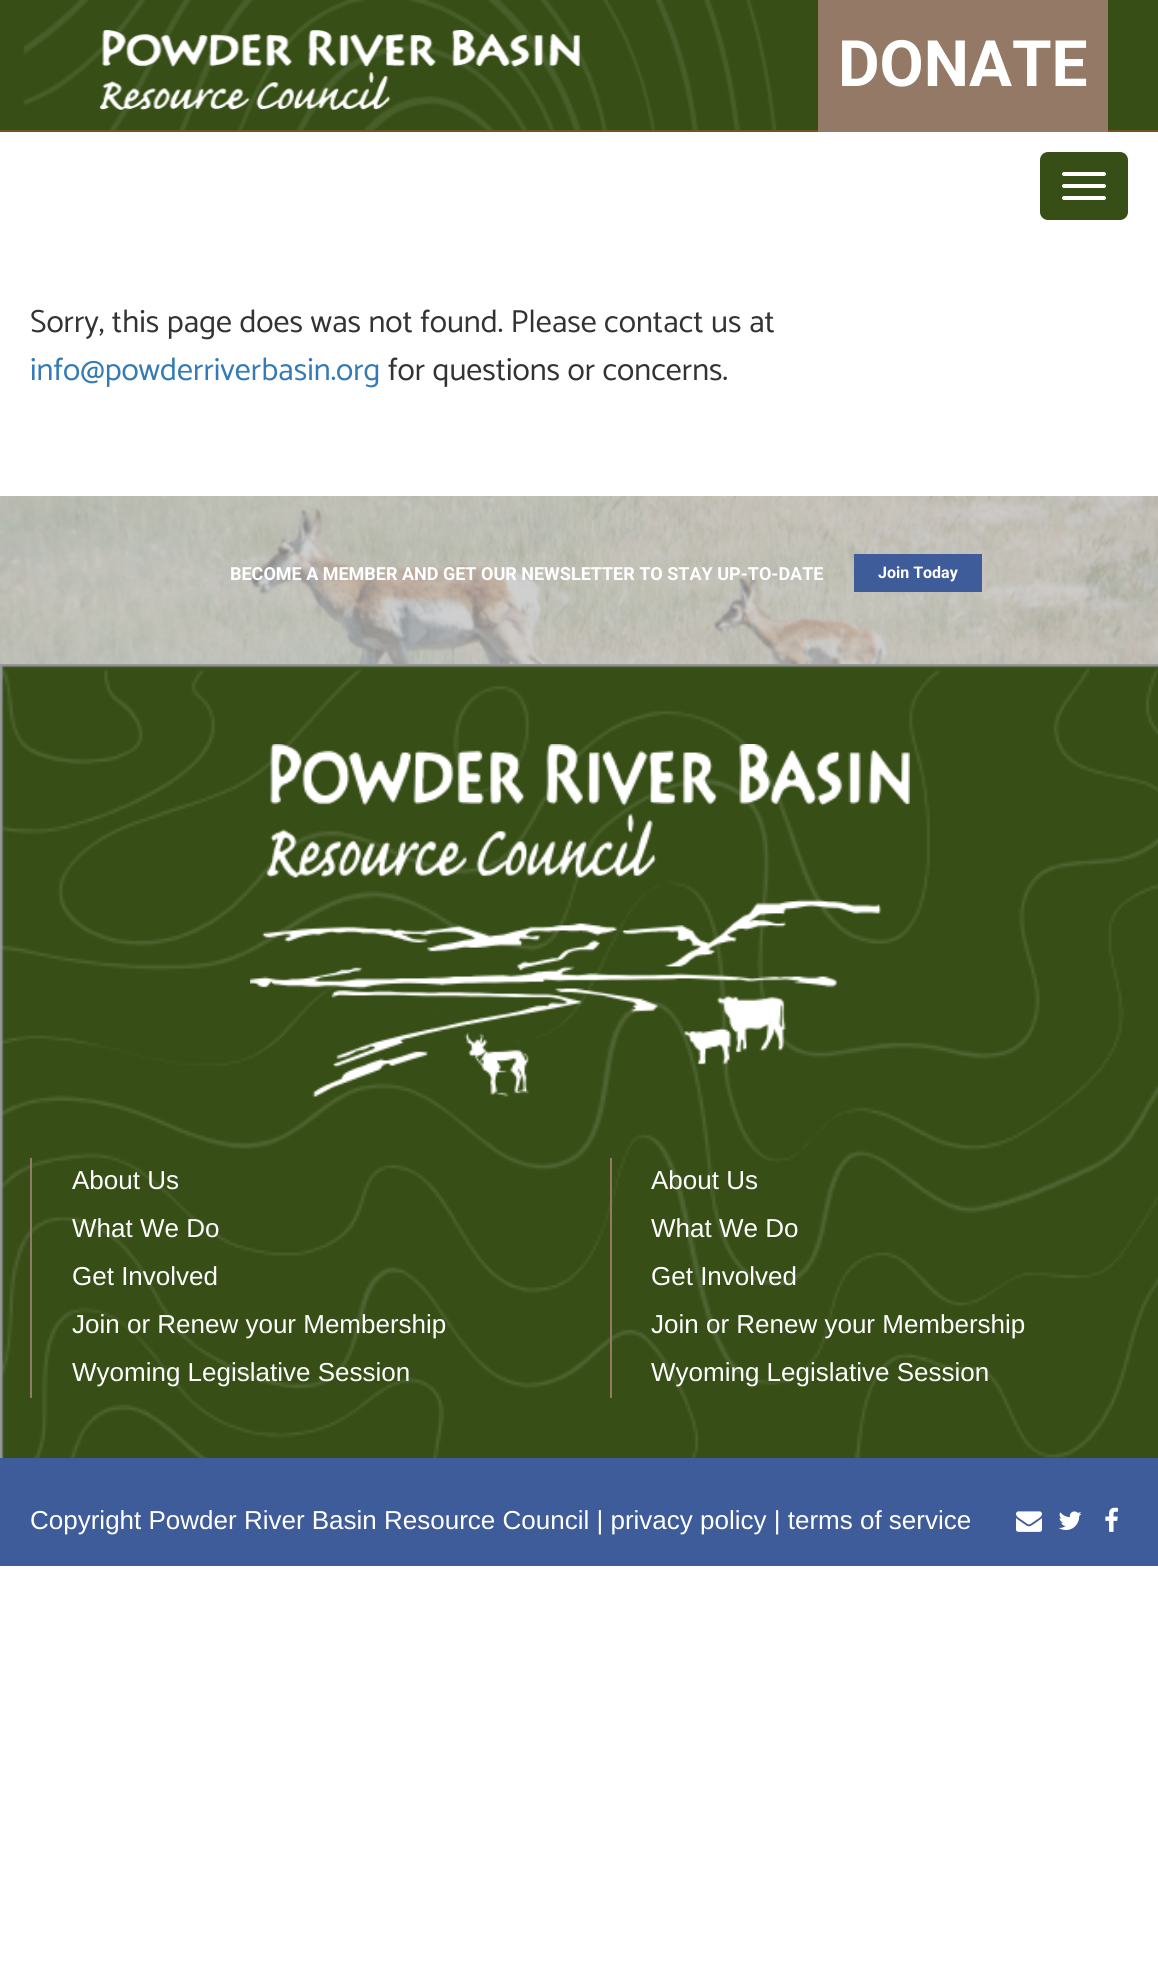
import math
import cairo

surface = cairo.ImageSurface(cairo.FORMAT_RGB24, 1158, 1977)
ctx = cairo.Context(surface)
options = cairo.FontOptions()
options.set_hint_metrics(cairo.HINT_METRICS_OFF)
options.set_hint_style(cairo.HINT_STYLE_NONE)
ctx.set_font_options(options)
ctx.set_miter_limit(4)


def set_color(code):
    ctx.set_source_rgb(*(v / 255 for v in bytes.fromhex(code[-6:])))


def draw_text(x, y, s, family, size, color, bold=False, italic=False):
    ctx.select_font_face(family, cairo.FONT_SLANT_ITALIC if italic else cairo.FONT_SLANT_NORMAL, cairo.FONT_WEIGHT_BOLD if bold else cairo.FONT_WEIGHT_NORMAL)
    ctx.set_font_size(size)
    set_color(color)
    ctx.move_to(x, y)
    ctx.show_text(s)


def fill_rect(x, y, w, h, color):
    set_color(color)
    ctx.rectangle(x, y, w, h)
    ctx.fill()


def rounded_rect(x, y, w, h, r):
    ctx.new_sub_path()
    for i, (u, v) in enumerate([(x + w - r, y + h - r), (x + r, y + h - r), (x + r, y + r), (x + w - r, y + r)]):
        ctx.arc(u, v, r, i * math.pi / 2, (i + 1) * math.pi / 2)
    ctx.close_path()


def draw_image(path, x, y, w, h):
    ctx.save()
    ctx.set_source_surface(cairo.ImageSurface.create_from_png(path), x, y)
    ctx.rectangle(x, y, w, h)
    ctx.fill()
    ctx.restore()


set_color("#ffffff")
ctx.paint()
draw_image("assets/img1.png", 0, 0, 1158, 130)
fill_rect(0, 130, 1158, 2, "#725322")
draw_image("assets/img2.png", 100, 30, 480, 80)
fill_rect(818, 0, 290, 132, "#947a66")
draw_text(838, 86, "DONATE", "Roboto", 64, "#ffffff", bold=True)
set_color("#374f17")
rounded_rect(1040, 152, 88, 68, 8)
ctx.fill()
set_color("#ffffff")
rounded_rect(1062, 172, 44, 4, 2)
ctx.fill()
rounded_rect(1062, 184, 44, 4, 2)
ctx.fill()
rounded_rect(1062, 196, 44, 4, 2)
ctx.fill()
draw_text(30, 332, "Sorry, this page does was not found. Please contact us at", "Catamaran Thin", 32, "#333333")
draw_text(30, 380, "info@powderriverbasin.org", "Catamaran Thin", 32, "#337ab7")
draw_text(388, 380, "for questions or concerns.", "Catamaran Thin", 32, "#333333")
draw_image("assets/img3.png", 0, 496, 1158, 168)
draw_text(230, 580, "BECOME A MEMBER AND GET OUR NEWSLETTER TO STAY UP-TO-DATE", "Roboto", 18, "#ffffff", bold=True)
fill_rect(854, 554, 128, 38, "#3e5b9a")
draw_text(878, 578, "Join Today", "Roboto", 16, "#ffffff", bold=True)
draw_image("assets/img4.png", 0, 664, 1158, 794)
draw_image("assets/img5.png", 250, 744, 660, 354)
fill_rect(30, 1158, 2, 240, "#947a66")
draw_text(72, 1189, "About Us", "Liberation Sans", 26, "#ffffff")
draw_text(72, 1237, "What We Do", "Liberation Sans", 26, "#ffffff")
draw_text(72, 1285, "Get Involved", "Liberation Sans", 26, "#ffffff")
draw_text(72, 1333, "Join or Renew your Membership", "Liberation Sans", 26, "#ffffff")
draw_text(72, 1381, "Wyoming Legislative Session", "Liberation Sans", 26, "#ffffff")
fill_rect(610, 1158, 2, 240, "#947a66")
draw_text(651, 1189, "About Us", "Liberation Sans", 26, "#ffffff")
draw_text(651, 1237, "What We Do", "Liberation Sans", 26, "#ffffff")
draw_text(651, 1285, "Get Involved", "Liberation Sans", 26, "#ffffff")
draw_text(651, 1333, "Join or Renew your Membership", "Liberation Sans", 26, "#ffffff")
draw_text(651, 1381, "Wyoming Legislative Session", "Liberation Sans", 26, "#ffffff")
fill_rect(0, 1458, 1158, 108, "#3e5b9a")
draw_text(30, 1529, "Copyright Powder River Basin Resource Council | privacy policy | terms of service", "Liberation Sans", 26, "#ffffff")
draw_image("assets/img6.png", 1016, 1511, 26, 21)
draw_image("assets/img7.png", 1058, 1511, 24, 19)
draw_image("assets/img8.png", 1105, 1507, 13, 25)
surface.write_to_png("output.png")
